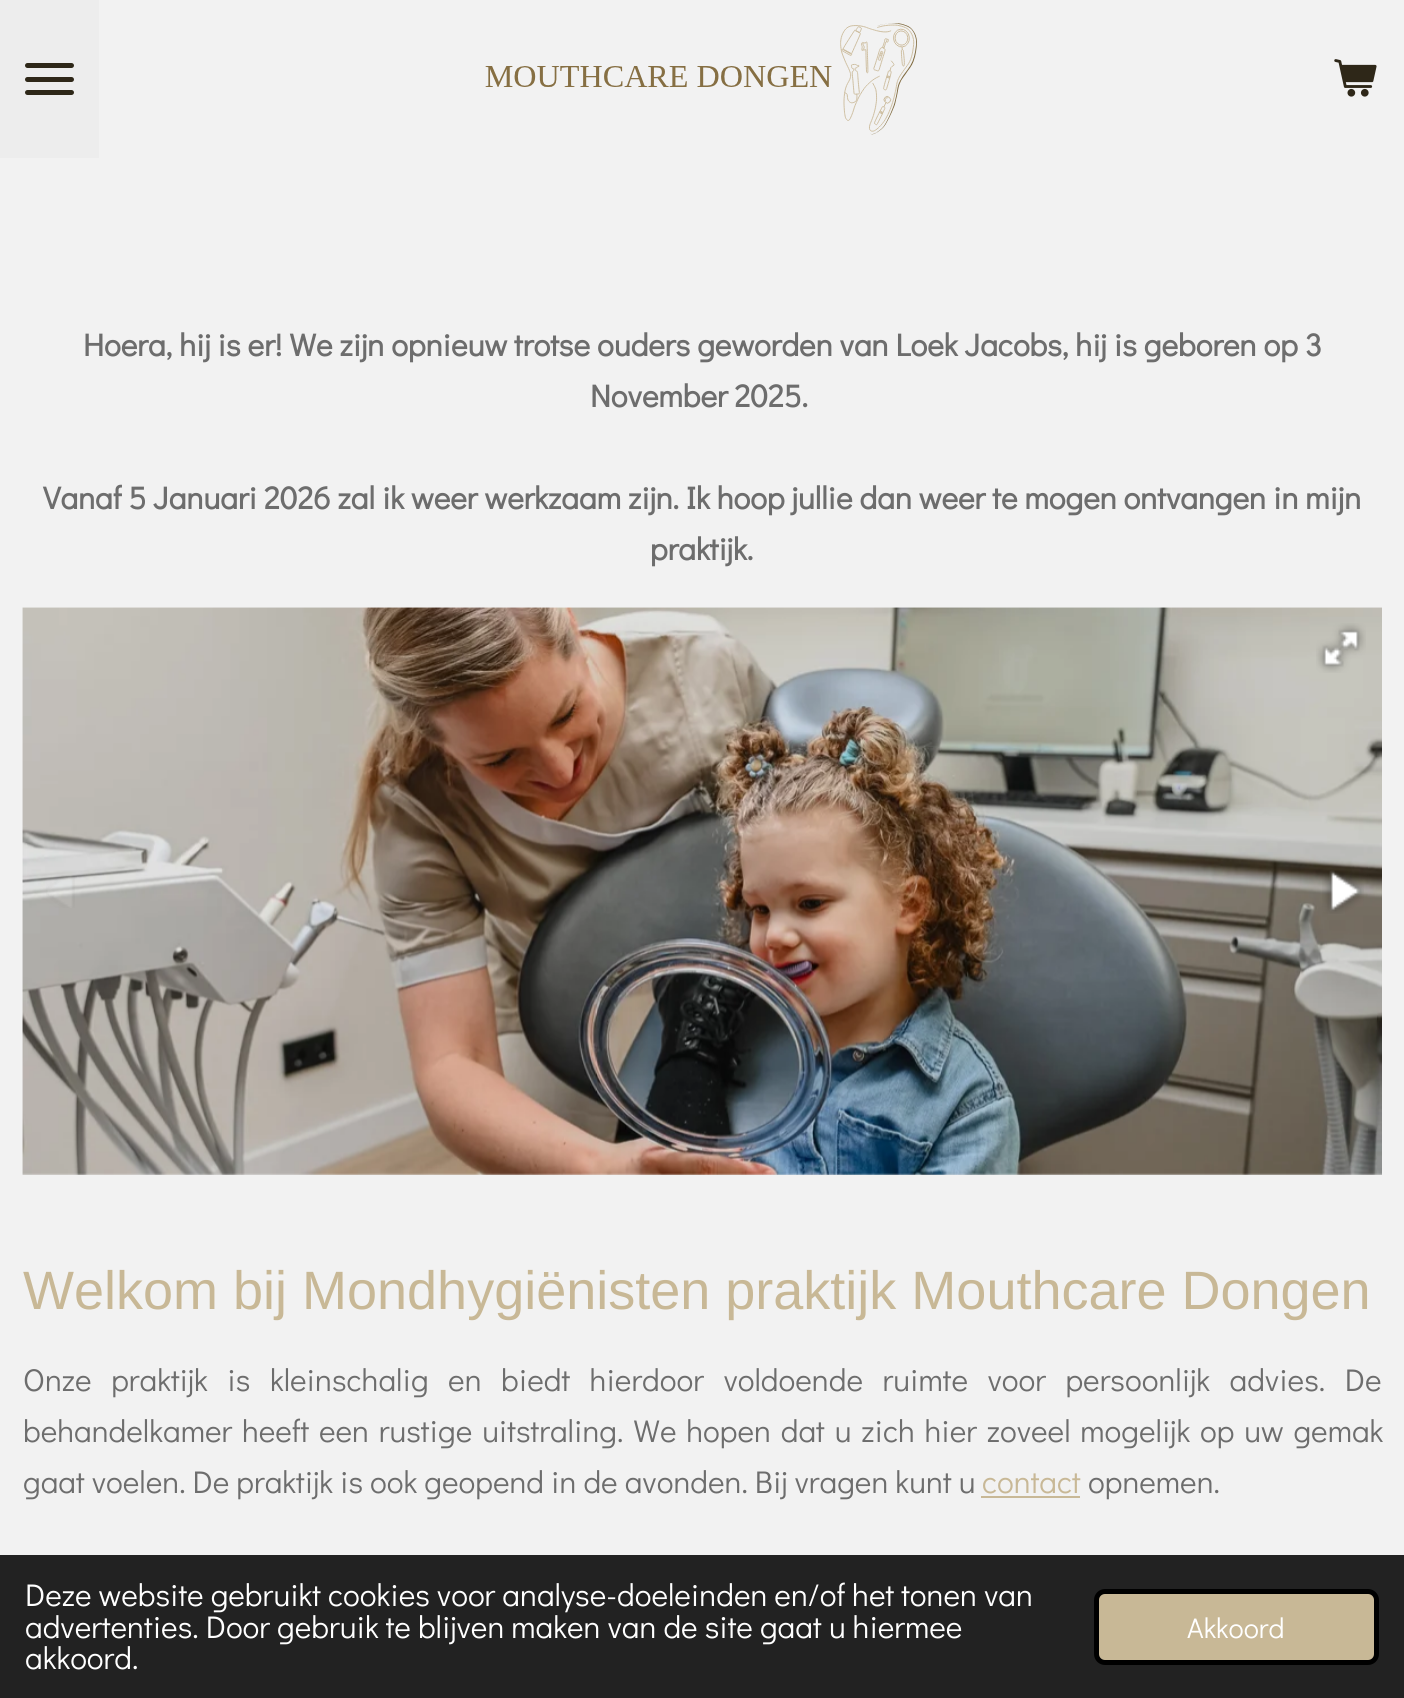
import math
import cairo

surface = cairo.ImageSurface(cairo.FORMAT_RGB24, 1404, 1698)
ctx = cairo.Context(surface)
options = cairo.FontOptions()
options.set_hint_metrics(cairo.HINT_METRICS_OFF)
options.set_hint_style(cairo.HINT_STYLE_NONE)
ctx.set_font_options(options)
ctx.set_miter_limit(4)


def set_color(code):
    ctx.set_source_rgb(*(v / 255 for v in bytes.fromhex(code[-6:])))


def draw_text(x, y, s, family, size, color, bold=False, italic=False):
    ctx.select_font_face(family, cairo.FONT_SLANT_ITALIC if italic else cairo.FONT_SLANT_NORMAL, cairo.FONT_WEIGHT_BOLD if bold else cairo.FONT_WEIGHT_NORMAL)
    ctx.set_font_size(size)
    set_color(color)
    ctx.move_to(x, y)
    ctx.show_text(s)


def draw_spaced(x, y, s, letter, word):
    ctx.move_to(x, y)
    for ch in s:
        ctx.show_text(ch)
        ctx.rel_move_to(letter + word * (ch == ' '), 0)


def fill_rect(x, y, w, h, color):
    set_color(color)
    ctx.rectangle(x, y, w, h)
    ctx.fill()


def rounded_rect(x, y, w, h, r):
    ctx.new_sub_path()
    for i, (u, v) in enumerate([(x + w - r, y + h - r), (x + r, y + h - r), (x + r, y + r), (x + w - r, y + r)]):
        ctx.arc(u, v, r, i * math.pi / 2, (i + 1) * math.pi / 2)
    ctx.close_path()


def draw_image(path, x, y, w, h):
    ctx.save()
    ctx.set_source_surface(cairo.ImageSurface.create_from_png(path), x, y)
    ctx.rectangle(x, y, w, h)
    ctx.fill()
    ctx.restore()


set_color("#f2f2f2")
ctx.paint()
fill_rect(0, 0, 99, 158, "#ededed")
set_color("#2e2718")
rounded_rect(25, 77, 49, 5, 2.5)
ctx.fill()
rounded_rect(25, 63, 49, 5, 2.5)
ctx.fill()
rounded_rect(25, 90, 49, 5, 2.5)
ctx.fill()
draw_image("assets/img1.png", 485, 23, 432, 112)
draw_image("assets/img2.png", 1334, 59, 43, 38)
draw_text(83, 356, "Hoera, hij is er! We zijn opnieuw trotse ouders geworden van Loek Jacobs, hij is geboren op 3", "Didact Gothic", 31.5, "#6d6d6d", bold=True)
draw_text(590, 407, "November 2025.", "Didact Gothic", 31.5, "#6d6d6d", bold=True)
draw_text(43, 509, "Vanaf 5 Januari 2026 zal ik weer werkzaam zijn. Ik hoop jullie dan weer te mogen ontvangen in mijn", "Didact Gothic", 31.5, "#6d6d6d", bold=True)
draw_text(650, 560, "praktijk.", "Didact Gothic", 31.5, "#6d6d6d", bold=True)
draw_image("assets/img3.png", 22, 607, 1360, 568)
draw_image("assets/img4.png", 1316, 623, 50, 50)
draw_image("assets/img5.png", 46, 875, 29, 33)
draw_image("assets/img6.png", 1322, 870, 42, 44)
draw_text(23, 1309, "Welkom bij Mondhygiënisten praktijk Mouthcare Dongen", "Arimo", 54, "#c8b896")
ctx.select_font_face("Didact Gothic")
ctx.set_font_size(31.5)
set_color("#6d6d6d")
draw_spaced(23, 1391, "Onze praktijk is kleinschalig en biedt hierdoor voldoende ruimte voor persoonlijk advies. De", 0, 12.5)
draw_spaced(23, 1442, "behandelkamer heeft een rustige uitstraling. We hopen dat u zich hier zoveel mogelijk op uw gemak", 0, 2.75)
draw_text(23, 1493, "gaat voelen. De praktijk is ook geopend in de avonden. Bij vragen kunt u", "Didact Gothic", 31.5, "#6d6d6d")
draw_text(982, 1493, "contact", "Didact Gothic", 31.5, "#c8b896")
fill_rect(981, 1496, 99, 2, "#c8b896")
draw_text(1088, 1493, "opnemen.", "Didact Gothic", 31.5, "#6d6d6d")
fill_rect(0, 1555, 1404, 143, "#222222")
draw_text(25, 1606, "Deze website gebruikt cookies voor analyse-doeleinden en/of het tonen van", "Didact Gothic", 31.5, "#ffffff")
draw_text(25, 1638, "advertenties. Door gebruik te blijven maken van de site gaat u hiermee", "Didact Gothic", 31.5, "#ffffff")
draw_text(25, 1669, "akkoord.", "Didact Gothic", 31.5, "#ffffff")
set_color("#c8b896")
rounded_rect(1096.5, 1591.5, 280, 71, 8.5)
ctx.fill_preserve()
set_color("#000000")
ctx.set_line_width(5)
ctx.stroke()
draw_text(1187, 1638, "Akkoord", "Didact Gothic", 28.5, "#ffffff")
surface.write_to_png("output.png")
